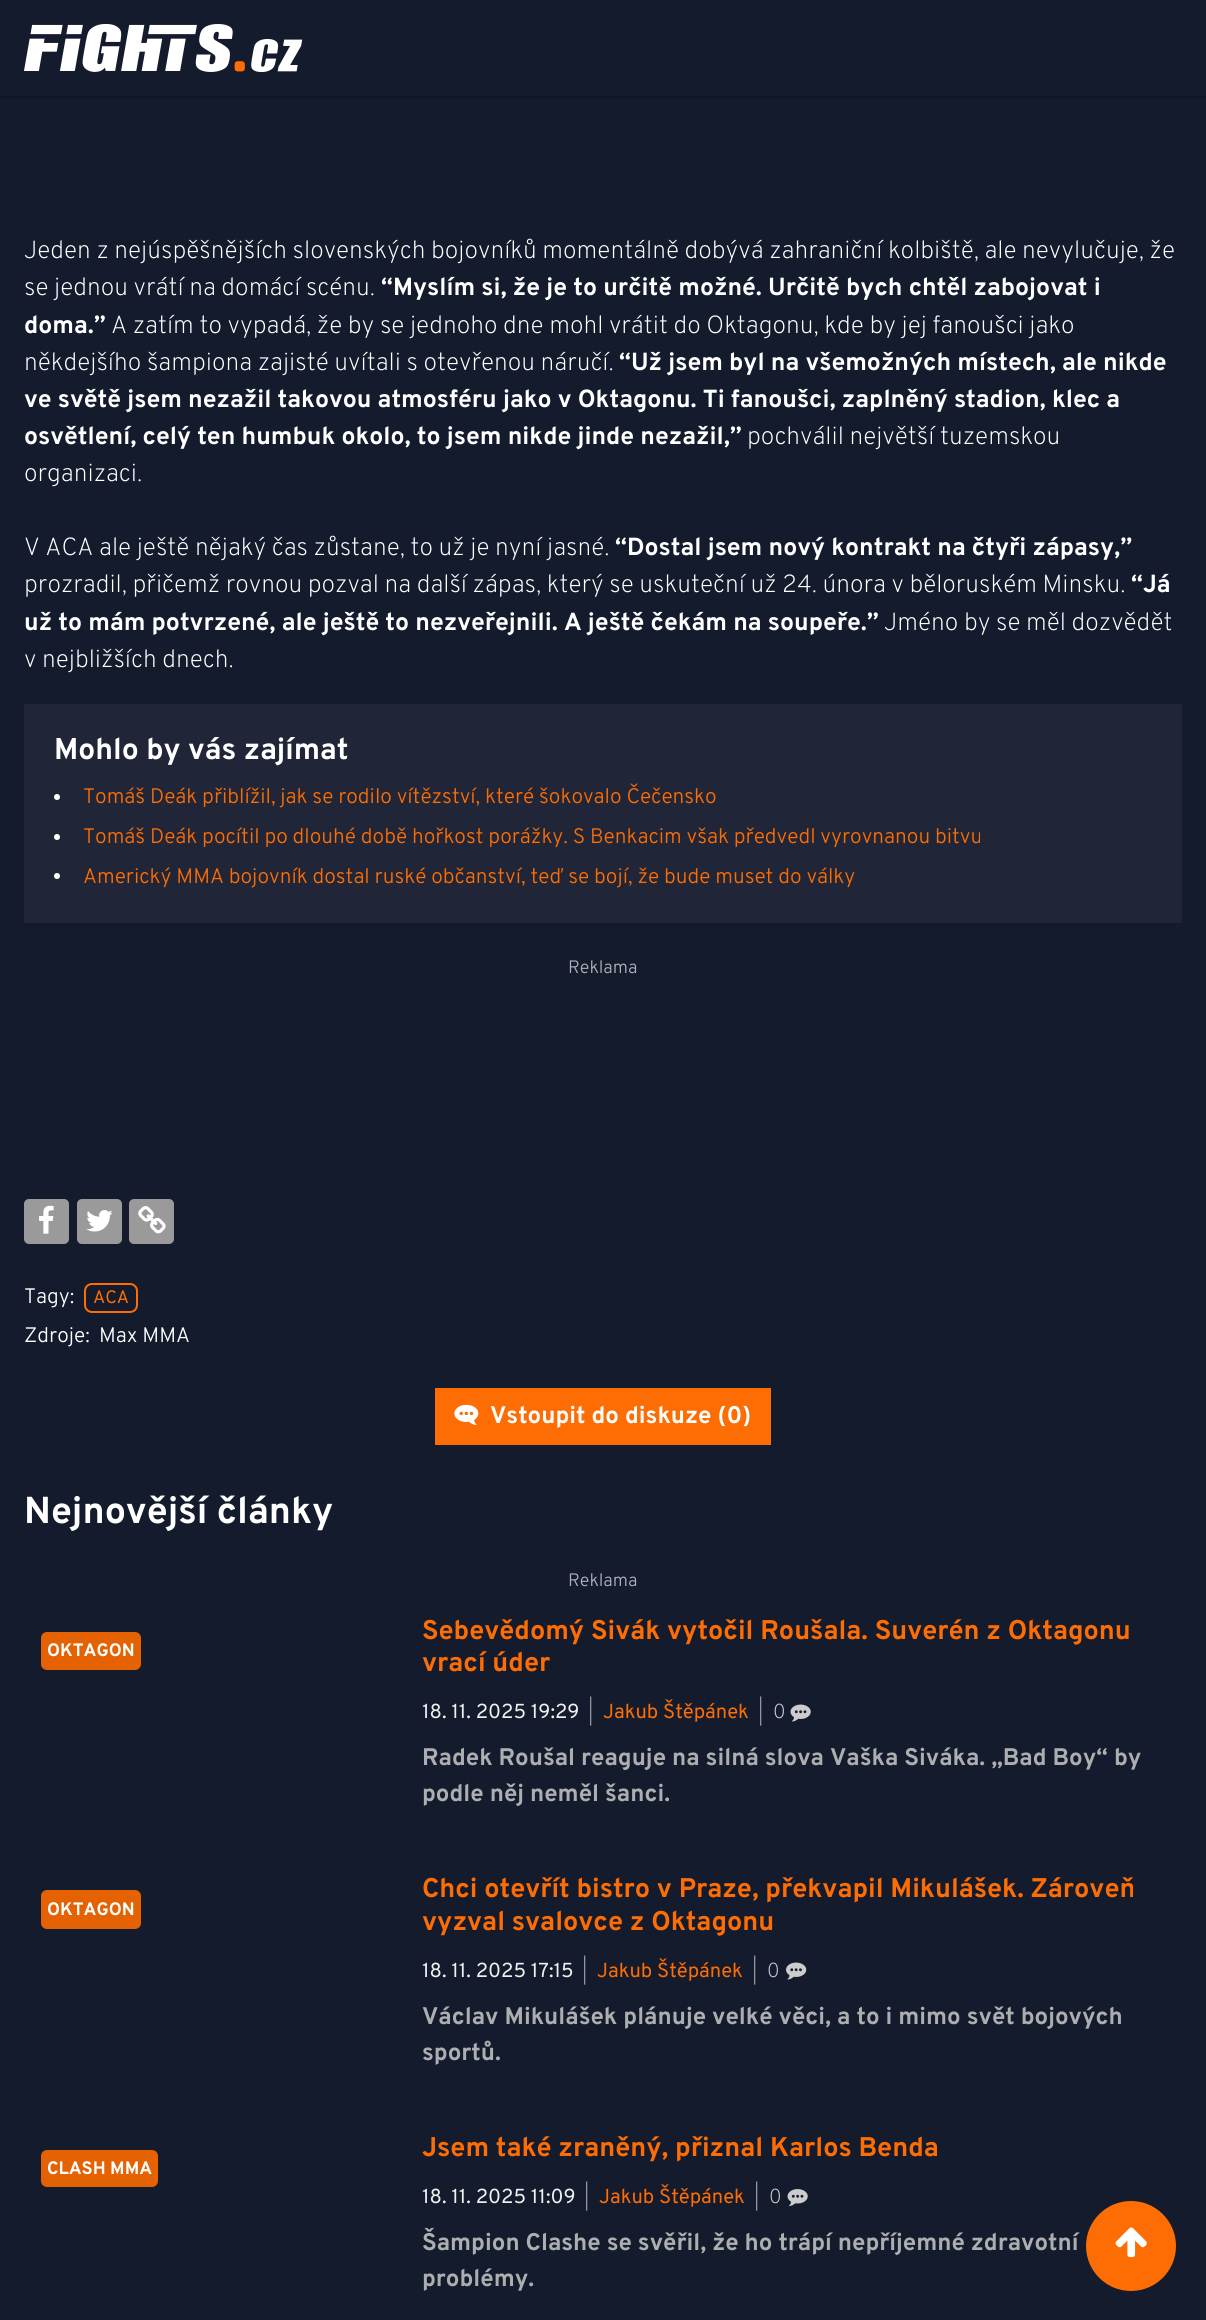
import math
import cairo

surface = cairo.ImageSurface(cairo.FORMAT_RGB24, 1206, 2320)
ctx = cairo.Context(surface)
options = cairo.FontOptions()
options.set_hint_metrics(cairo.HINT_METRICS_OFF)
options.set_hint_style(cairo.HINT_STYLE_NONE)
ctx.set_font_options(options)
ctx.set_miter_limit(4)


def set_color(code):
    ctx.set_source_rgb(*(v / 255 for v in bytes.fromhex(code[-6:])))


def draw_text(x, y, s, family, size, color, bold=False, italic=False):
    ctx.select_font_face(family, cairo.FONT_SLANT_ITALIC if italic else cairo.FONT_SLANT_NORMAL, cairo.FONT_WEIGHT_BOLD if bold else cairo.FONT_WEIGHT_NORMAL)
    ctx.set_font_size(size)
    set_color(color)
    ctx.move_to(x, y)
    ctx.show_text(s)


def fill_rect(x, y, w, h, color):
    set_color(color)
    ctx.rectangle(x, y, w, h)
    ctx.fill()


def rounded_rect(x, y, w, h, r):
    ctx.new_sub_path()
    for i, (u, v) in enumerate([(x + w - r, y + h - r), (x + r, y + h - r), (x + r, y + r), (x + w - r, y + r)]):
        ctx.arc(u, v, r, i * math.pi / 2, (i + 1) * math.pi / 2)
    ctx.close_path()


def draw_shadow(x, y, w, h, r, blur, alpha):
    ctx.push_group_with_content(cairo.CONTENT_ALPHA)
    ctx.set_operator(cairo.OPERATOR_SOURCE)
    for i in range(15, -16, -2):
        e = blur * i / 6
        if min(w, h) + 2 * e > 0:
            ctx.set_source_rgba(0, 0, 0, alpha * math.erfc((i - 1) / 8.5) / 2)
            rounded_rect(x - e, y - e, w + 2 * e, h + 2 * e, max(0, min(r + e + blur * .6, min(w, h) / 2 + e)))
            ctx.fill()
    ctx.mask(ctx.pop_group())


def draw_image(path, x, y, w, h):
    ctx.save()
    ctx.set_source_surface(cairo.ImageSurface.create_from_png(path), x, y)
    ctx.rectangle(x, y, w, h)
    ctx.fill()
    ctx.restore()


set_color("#141b2d")
ctx.paint()
ctx.save()
ctx.rectangle(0, 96, 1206, 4)
ctx.clip()
set_color("#0f1522")
draw_shadow(0, 2, 1206, 96, 0, 1, 1)
ctx.restore()
draw_image("assets/img1.png", 24, 24, 279, 48)
draw_text(24, 258, "Jeden z nejúspěšnějších slovenských bojovníků momentálně dobývá zahraniční kolbiště, ale nevylučuje, že", "Overpass ExtraLight", 24.75, "#ffffff")
draw_text(24, 295, "se jednou vrátí na domácí scénu.", "Overpass ExtraLight", 24.75, "#ffffff")
draw_text(381, 295, "“Myslím si, že je to určitě možné. Určitě bych chtěl zabojovat i", "Overpass", 24.75, "#ffffff", bold=True)
draw_text(24, 333, "doma.”", "Overpass", 24.75, "#ffffff", bold=True)
draw_text(111, 333, "A zatím to vypadá, že by se jednoho dne mohl vrátit do Oktagonu, kde by jej fanoušci jako", "Overpass ExtraLight", 24.75, "#ffffff")
draw_text(24, 370, "někdejšího šampiona zajisté uvítali s otevřenou náručí.", "Overpass ExtraLight", 24.75, "#ffffff")
draw_text(619, 370, "“Už jsem byl na všemožných místech, ale nikde", "Overpass", 24.75, "#ffffff", bold=True)
draw_text(24, 407, "ve světě jsem nezažil takovou atmosféru jako v Oktagonu. Ti fanoušci, zaplněný stadion, klec a", "Overpass", 24.75, "#ffffff", bold=True)
draw_text(24, 444, "osvětlení, celý ten humbuk okolo, to jsem nikde jinde nezažil,”", "Overpass", 24.75, "#ffffff", bold=True)
draw_text(747, 444, "pochválil největší tuzemskou", "Overpass ExtraLight", 24.75, "#ffffff")
draw_text(24, 481, "organizaci.", "Overpass ExtraLight", 24.75, "#ffffff")
draw_text(24, 555, "V ACA ale ještě nějaký čas zůstane, to už je nyní jasné.", "Overpass ExtraLight", 24.75, "#ffffff")
draw_text(615, 555, "“Dostal jsem nový kontrakt na čtyři zápasy,”", "Overpass", 24.75, "#ffffff", bold=True)
draw_text(24, 592, "prozradil, přičemž rovnou pozval na další zápas, který se uskuteční už 24. února v běloruském Minsku.", "Overpass ExtraLight", 24.75, "#ffffff")
draw_text(1131, 592, "“Já", "Overpass", 24.75, "#ffffff", bold=True)
draw_text(24, 630, "už to mám potvrzené, ale ještě to nezveřejnili. A ještě čekám na soupeře.”", "Overpass", 24.75, "#ffffff", bold=True)
draw_text(884, 630, "Jméno by se měl dozvědět", "Overpass ExtraLight", 24.75, "#ffffff")
draw_text(24, 667, "v nejbližších dnech.", "Overpass ExtraLight", 24.75, "#ffffff")
fill_rect(24, 704, 1158, 219, "#202637")
draw_text(54, 759, "Mohlo by vás zajímat", "Overpass", 30, "#ffffff", bold=True)
ctx.new_path()
ctx.arc(57, 797, 3, 0, 2 * math.pi)
ctx.fill()
draw_text(83, 803, "Tomáš Deák přiblížil, jak se rodilo vítězství, které šokovalo Čečensko", "Overpass Light", 21, "#fd6d03")
set_color("#ffffff")
ctx.new_path()
ctx.arc(57, 837, 3, 0, 2 * math.pi)
ctx.fill()
draw_text(83, 843, "Tomáš Deák pocítil po dlouhé době hořkost porážky. S Benkacim však předvedl vyrovnanou bitvu", "Overpass Light", 21, "#fd6d03")
set_color("#ffffff")
ctx.new_path()
ctx.arc(57, 876, 3, 0, 2 * math.pi)
ctx.fill()
draw_text(83, 883, "Americký MMA bojovník dostal ruské občanství, teď se bojí, že bude muset do války", "Overpass Light", 21, "#fd6d03")
draw_text(568, 973, "Reklama", "Overpass Light", 18, "#afb1b8")
set_color("#9a9a9a")
rounded_rect(24, 1199, 45, 45, 5)
ctx.fill()
draw_image("assets/img2.png", 39, 1205, 15, 29)
rounded_rect(77, 1199, 45, 45, 5)
ctx.fill()
draw_image("assets/img3.png", 86, 1210, 27, 22)
rounded_rect(129, 1199, 45, 45, 5)
ctx.fill()
draw_image("assets/img4.png", 138, 1206, 28, 28)
draw_text(24, 1303, "Tagy:", "Overpass Light", 21, "#ffffff")
rounded_rect(85, 1284, 52, 28, 7)
set_color("#fd6d03")
ctx.stroke()
draw_text(93, 1303, "ACA", "Overpass", 18, "#fd6d03")
draw_text(24, 1342, "Zdroje:", "Overpass Light", 21, "#ffffff")
draw_text(99, 1342, "Max MMA", "Overpass Light", 21, "#ffffff")
fill_rect(435, 1388, 336, 57, "#fd6d03")
draw_image("assets/img5.png", 454, 1404, 25, 21)
draw_text(490, 1423, "Vstoupit do diskuze (0)", "Overpass", 24, "#ffffff", bold=True)
draw_text(24, 1523, "Nejnovější články", "Overpass", 37.5, "#ffffff", bold=True)
draw_text(568, 1586, "Reklama", "Overpass Light", 18, "#afb1b8")
set_color("#e56202")
rounded_rect(41, 1632, 100, 38, 6)
ctx.fill()
draw_text(47, 1656, "OKTAGON", "Overpass", 18, "#ffffff", bold=True)
draw_text(422, 1639, "Sebevědomý Sivák vytočil Roušala. Suverén z Oktagonu", "Overpass", 27, "#fd6d03", bold=True)
draw_text(422, 1671, "vrací úder", "Overpass", 27, "#fd6d03", bold=True)
draw_text(422, 1718, "18. 11. 2025 19:29", "Overpass", 20.25, "#f0f0f0")
draw_text(588, 1718, "|", "Overpass ExtraLight", 20.25, "#acaeaf")
draw_text(603, 1718, "Jakub Štěpánek", "Overpass", 20.25, "#fd6d03")
draw_text(758, 1718, "|", "Overpass ExtraLight", 20.25, "#acaeaf")
draw_text(773, 1718, "0", "Overpass ExtraLight", 20.25, "#cccccc")
draw_image("assets/img6.png", 790, 1704, 21, 18)
draw_text(422, 1765, "Radek Roušal reaguje na silná slova Vaška Siváka. „Bad Boy“ by", "Overpass", 24, "#acaeaf", bold=True)
draw_text(422, 1801, "podle něj neměl šanci.", "Overpass", 24, "#acaeaf", bold=True)
set_color("#e56202")
rounded_rect(41, 1890, 100, 39, 6)
ctx.fill()
draw_text(47, 1915, "OKTAGON", "Overpass", 18, "#ffffff", bold=True)
draw_text(422, 1897, "Chci otevřít bistro v Praze, překvapil Mikulášek. Zároveň", "Overpass", 27, "#fd6d03", bold=True)
draw_text(422, 1930, "vyzval svalovce z Oktagonu", "Overpass", 27, "#fd6d03", bold=True)
draw_text(422, 1977, "18. 11. 2025 17:15", "Overpass", 20.25, "#f0f0f0")
draw_text(582, 1977, "|", "Overpass ExtraLight", 20.25, "#acaeaf")
draw_text(597, 1977, "Jakub Štěpánek", "Overpass", 20.25, "#fd6d03")
draw_text(752, 1977, "|", "Overpass ExtraLight", 20.25, "#acaeaf")
draw_text(767, 1977, "0", "Overpass ExtraLight", 20.25, "#cccccc")
draw_image("assets/img7.png", 786, 1962, 21, 18)
draw_text(422, 2024, "Václav Mikulášek plánuje velké věci, a to i mimo svět bojových", "Overpass", 24, "#acaeaf", bold=True)
draw_text(422, 2060, "sportů.", "Overpass", 24, "#acaeaf", bold=True)
set_color("#e56202")
rounded_rect(41, 2150, 117, 37, 6)
ctx.fill()
draw_text(47, 2174, "CLASH MMA", "Overpass", 18, "#ffffff", bold=True)
draw_text(422, 2156, "Jsem také zraněný, přiznal Karlos Benda", "Overpass", 27, "#fd6d03", bold=True)
draw_text(422, 2203, "18. 11. 2025 11:09", "Overpass", 20.25, "#f0f0f0")
draw_text(584, 2203, "|", "Overpass ExtraLight", 20.25, "#acaeaf")
draw_text(599, 2203, "Jakub Štěpánek", "Overpass", 20.25, "#fd6d03")
draw_text(754, 2203, "|", "Overpass ExtraLight", 20.25, "#acaeaf")
draw_text(769, 2203, "0", "Overpass ExtraLight", 20.25, "#cccccc")
draw_image("assets/img8.png", 787, 2189, 21, 17)
draw_text(422, 2250, "Šampion Clashe se svěřil, že ho trápí nepříjemné zdravotní", "Overpass", 24, "#acaeaf", bold=True)
draw_text(422, 2286, "problémy.", "Overpass", 24, "#acaeaf", bold=True)
set_color("#fd6d03")
ctx.new_path()
ctx.arc(1131, 2246, 45, 0, 2 * math.pi)
ctx.fill()
draw_image("assets/img9.png", 1115, 2227, 32, 31)
surface.write_to_png("output.png")
